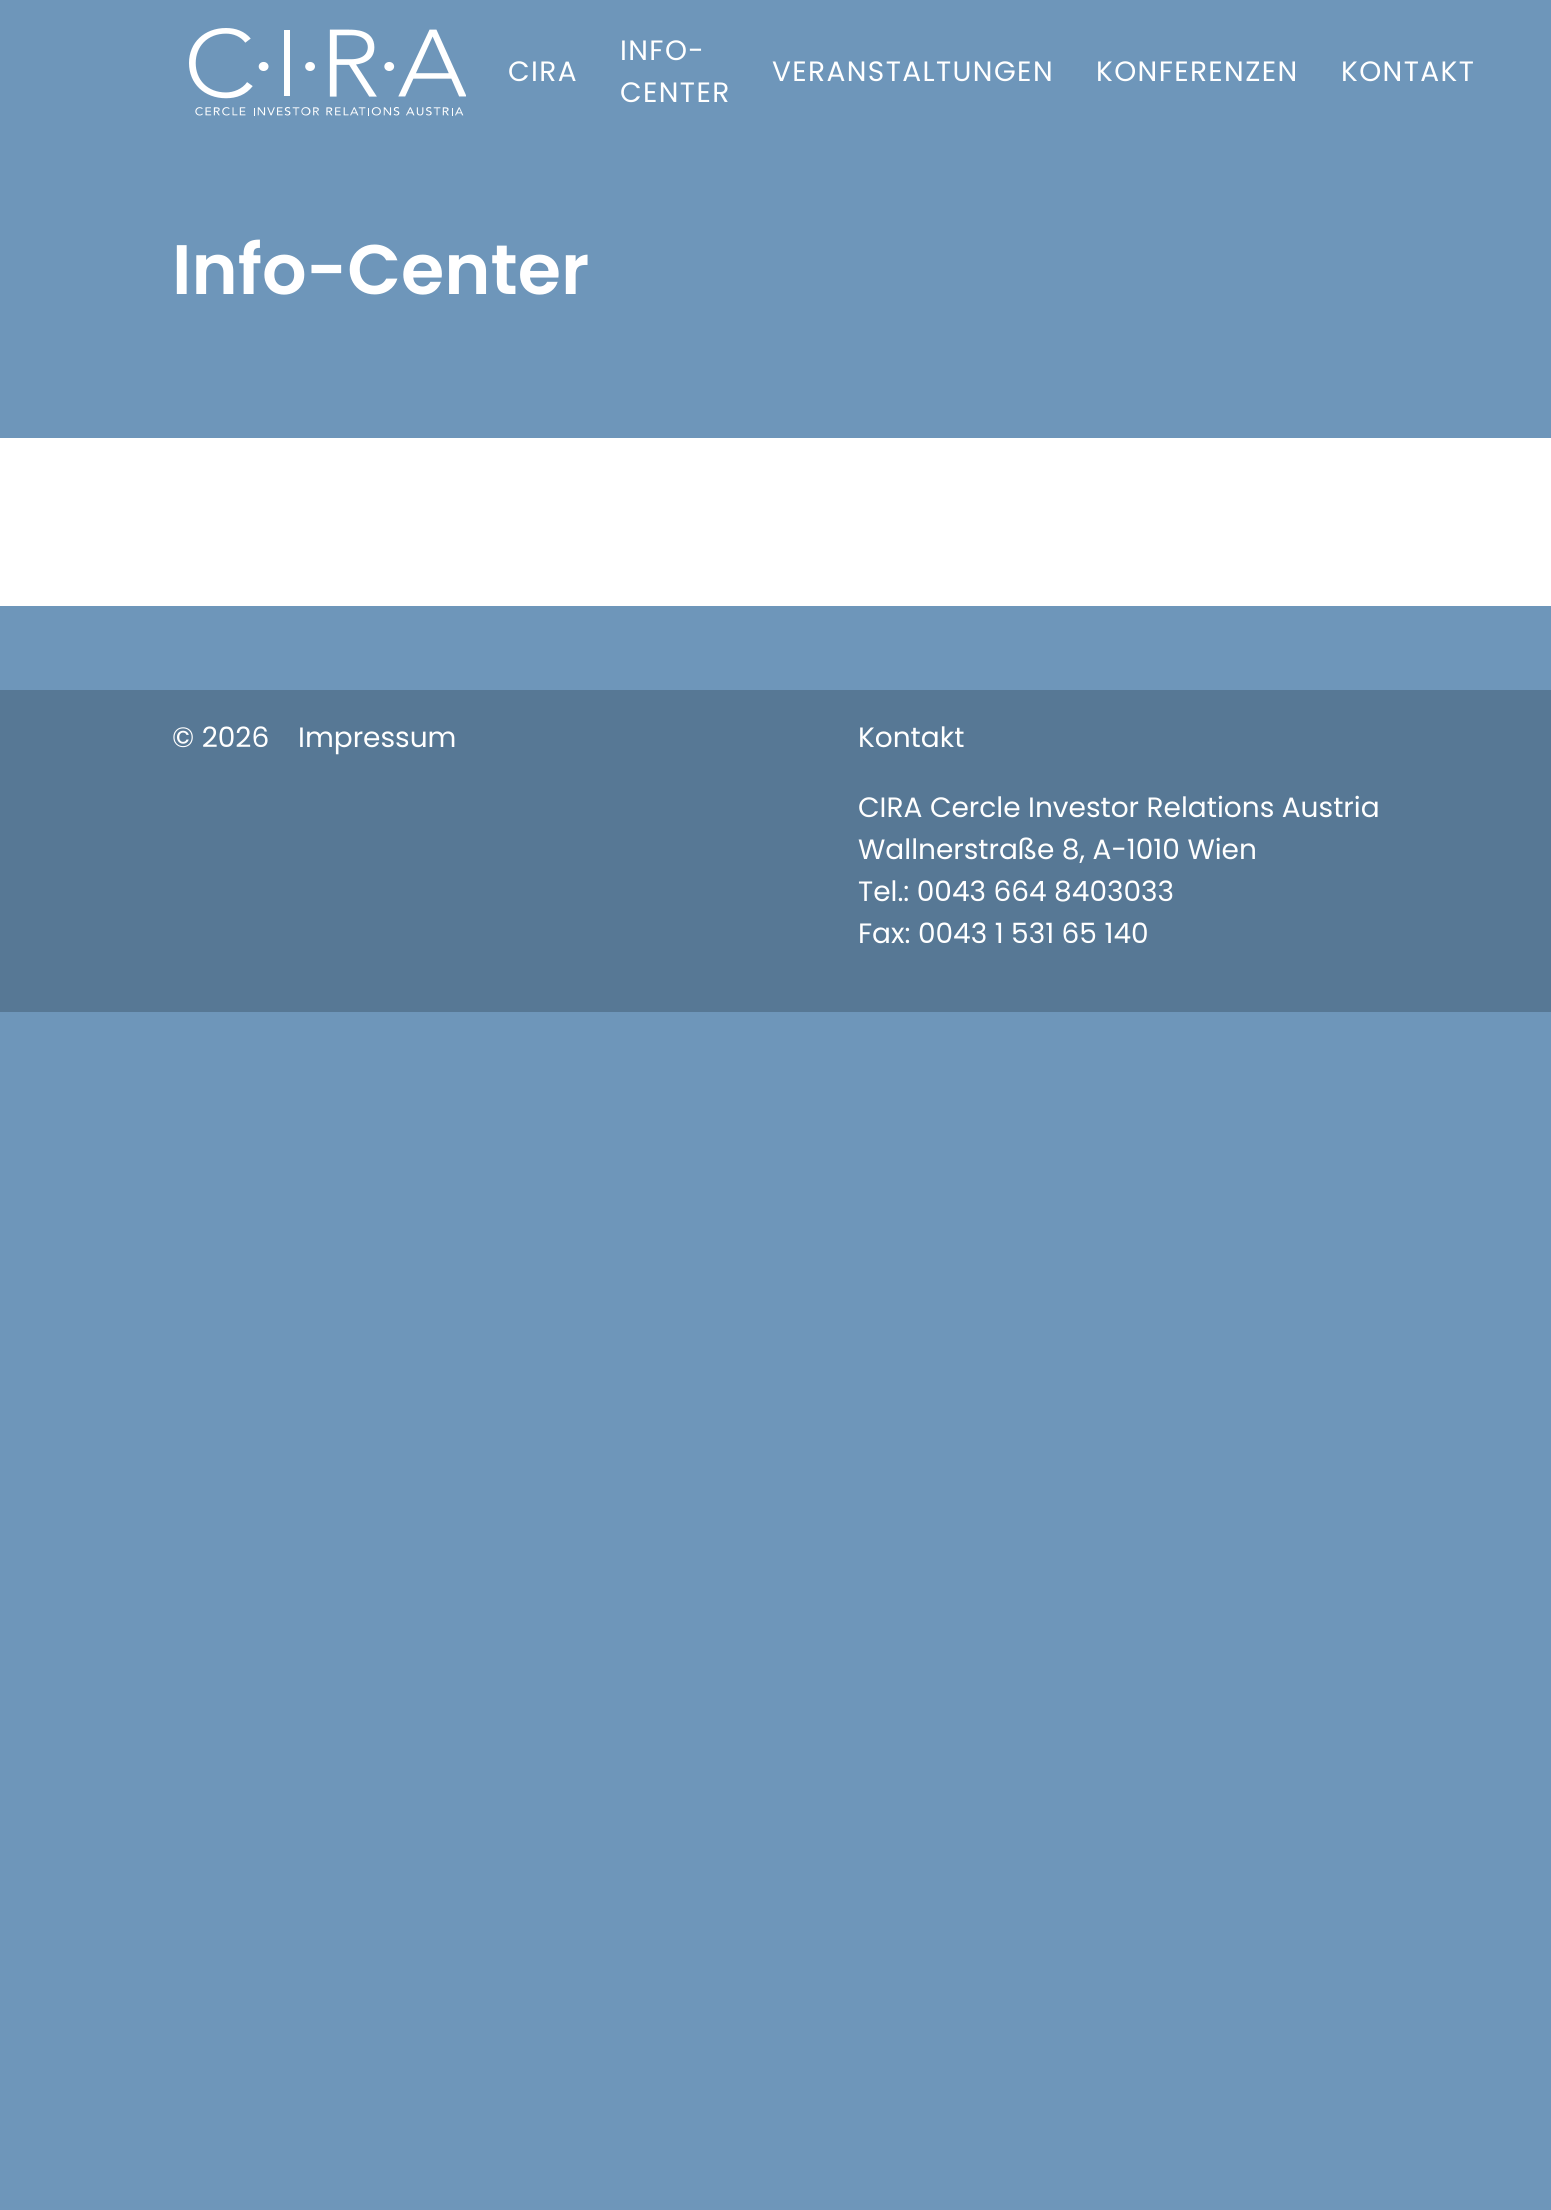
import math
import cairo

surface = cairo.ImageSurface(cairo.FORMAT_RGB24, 1551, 2210)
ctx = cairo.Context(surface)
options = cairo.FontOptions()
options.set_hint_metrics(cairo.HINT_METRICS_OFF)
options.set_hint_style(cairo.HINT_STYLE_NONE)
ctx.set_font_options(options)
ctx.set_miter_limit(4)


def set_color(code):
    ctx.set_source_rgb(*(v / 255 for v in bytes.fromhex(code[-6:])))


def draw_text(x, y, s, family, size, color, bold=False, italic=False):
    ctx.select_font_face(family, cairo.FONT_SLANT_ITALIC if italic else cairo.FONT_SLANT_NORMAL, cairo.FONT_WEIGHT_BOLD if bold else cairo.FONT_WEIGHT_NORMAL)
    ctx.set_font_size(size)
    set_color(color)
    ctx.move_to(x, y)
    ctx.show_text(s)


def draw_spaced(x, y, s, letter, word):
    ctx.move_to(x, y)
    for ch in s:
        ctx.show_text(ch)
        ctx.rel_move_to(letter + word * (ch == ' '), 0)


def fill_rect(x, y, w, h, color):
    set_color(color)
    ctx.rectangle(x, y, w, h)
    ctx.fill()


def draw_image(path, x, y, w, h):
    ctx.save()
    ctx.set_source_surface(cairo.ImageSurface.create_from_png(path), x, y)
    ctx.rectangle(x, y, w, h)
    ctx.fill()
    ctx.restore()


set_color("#6e96ba")
ctx.paint()
draw_image("assets/img1.png", 189, 28, 277, 88)
ctx.select_font_face("Poppins")
ctx.set_font_size(28)
set_color("#ffffff")
draw_spaced(508, 81, "CIRA", 1.4, 0)
draw_spaced(620, 60, "INFO-", 1.4, 0)
draw_spaced(620, 102, "CENTER", 1.4, 0)
draw_spaced(772, 81, "VERANSTALTUNGEN", 1.4, 0)
draw_spaced(1096, 81, "KONFERENZEN", 1.4, 0)
draw_spaced(1341, 81, "KONTAKT", 1.4, 0)
draw_text(172, 294, "Info-Center", "Poppins SemiBold", 70, "#ffffff")
fill_rect(0, 438, 1551, 168, "#ffffff")
fill_rect(0, 690, 1551, 322, "#577895")
draw_text(172, 747, "© 2026", "Poppins", 28, "#ffffff")
draw_text(298, 747, "Impressum", "Poppins", 28, "#ffffff")
draw_text(858, 747, "Kontakt", "Poppins", 28, "#ffffff")
draw_text(858, 817, "CIRA Cercle Investor Relations Austria", "Poppins", 28, "#ffffff")
draw_text(858, 859, "Wallnerstraße 8, A-1010 Wien", "Poppins", 28, "#ffffff")
draw_text(858, 901, "Tel.: 0043 664 8403033", "Poppins", 28, "#ffffff")
draw_text(858, 943, "Fax: 0043 1 531 65 140", "Poppins", 28, "#ffffff")
surface.write_to_png("output.png")
